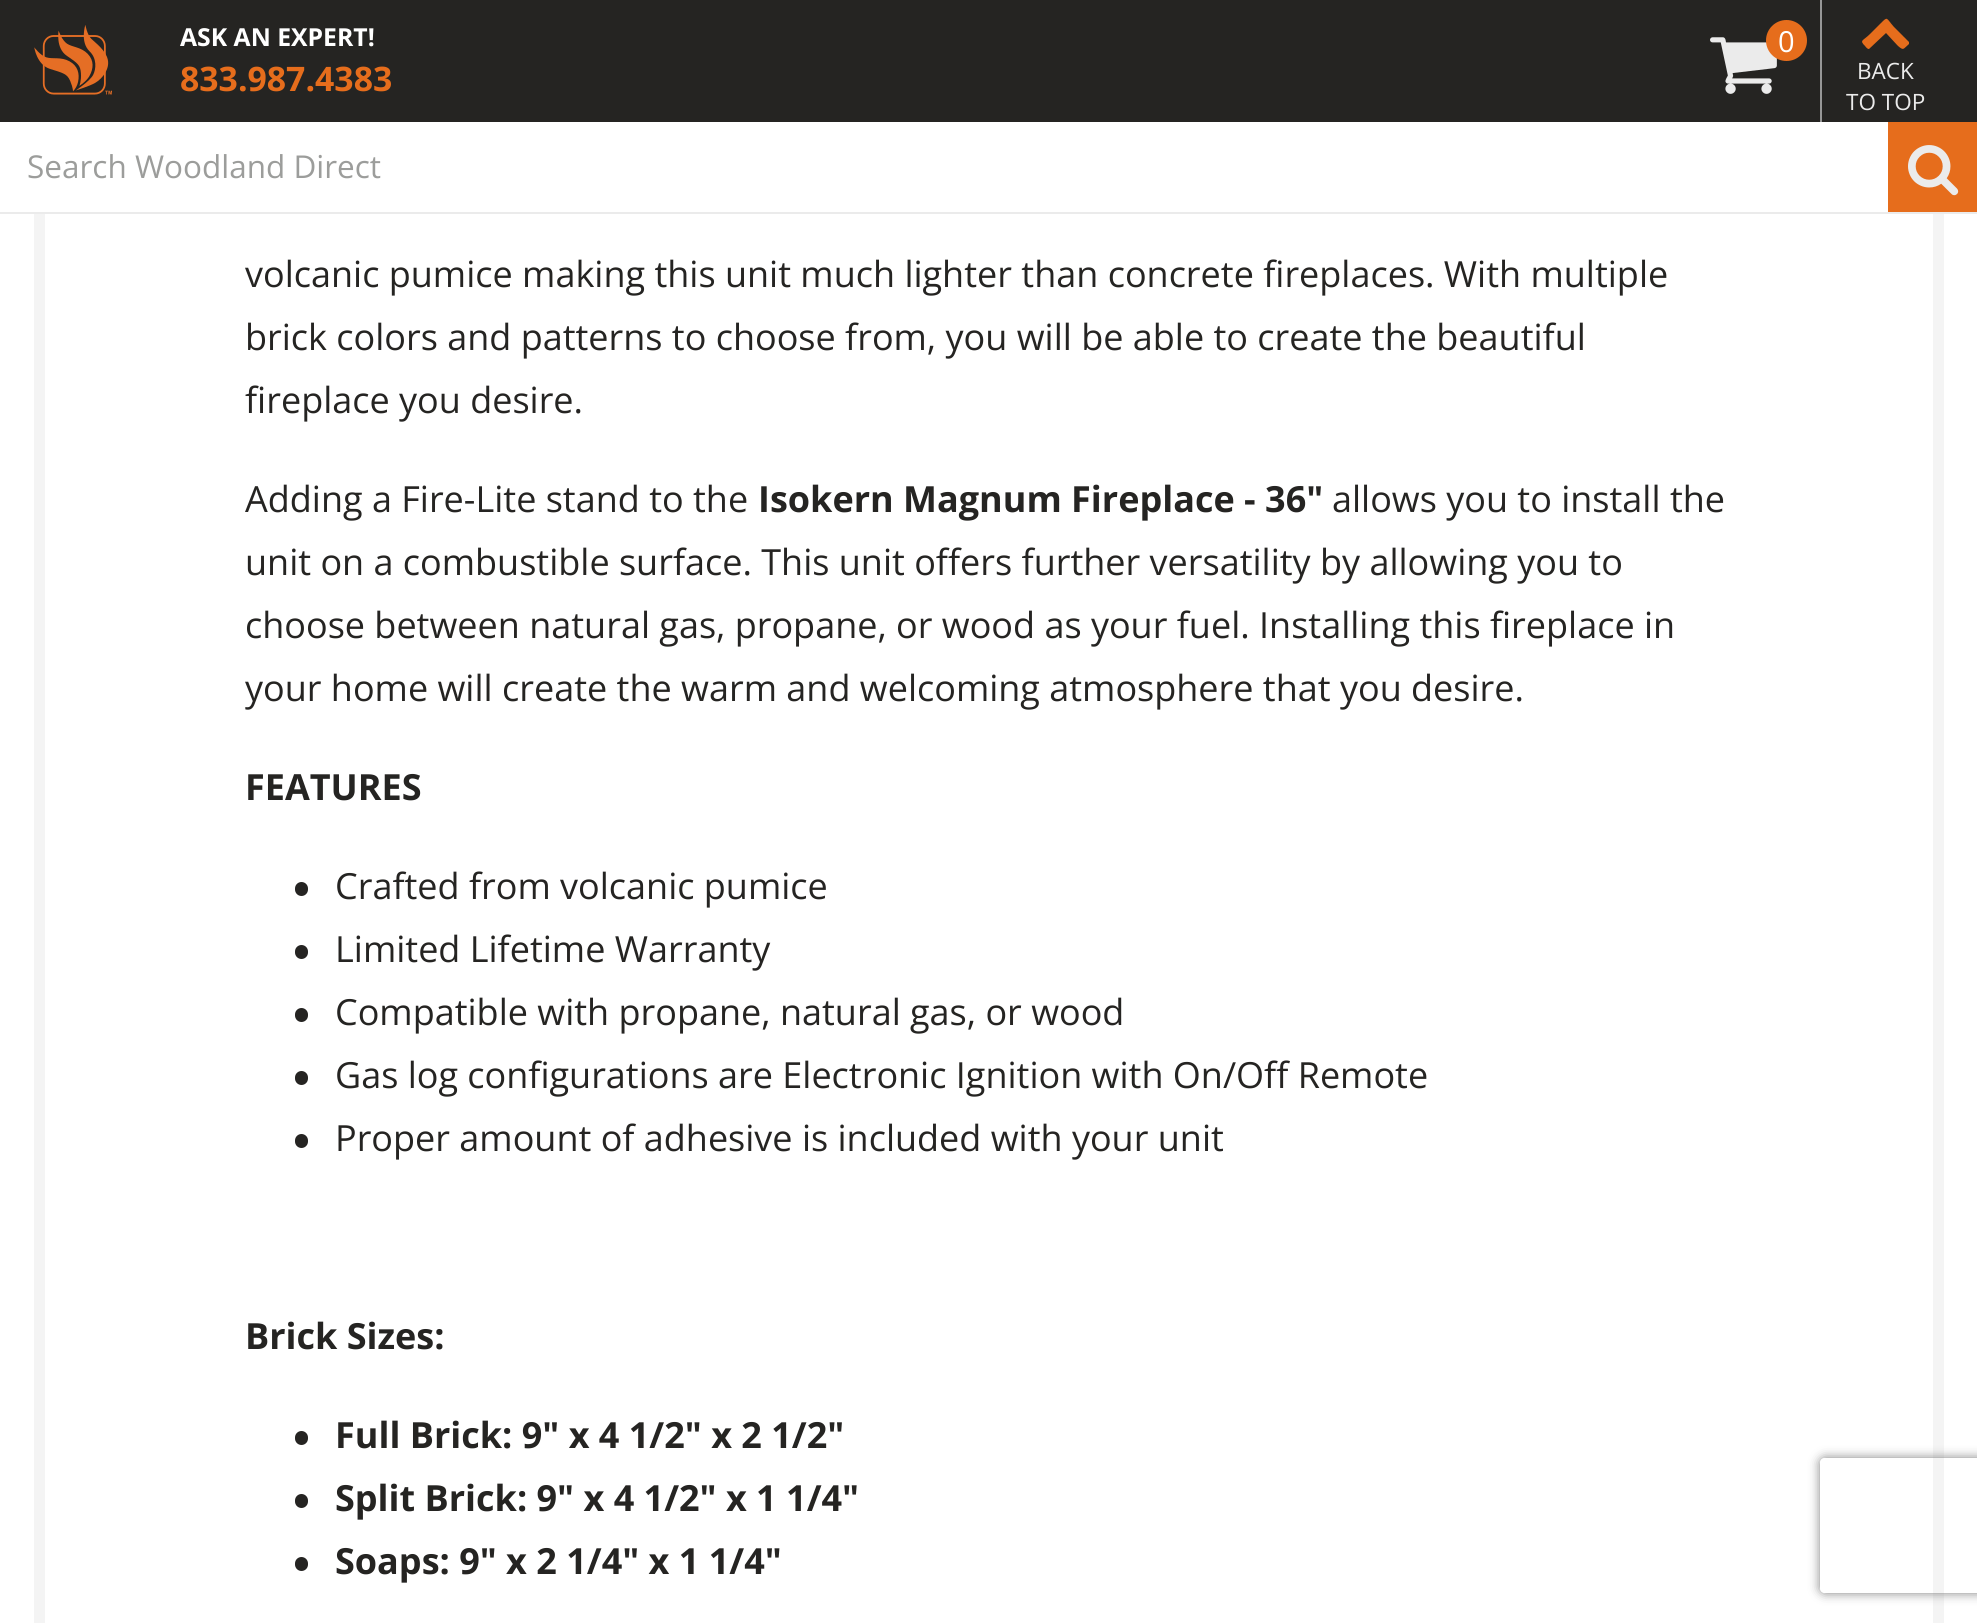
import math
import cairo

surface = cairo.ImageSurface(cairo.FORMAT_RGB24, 1977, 1623)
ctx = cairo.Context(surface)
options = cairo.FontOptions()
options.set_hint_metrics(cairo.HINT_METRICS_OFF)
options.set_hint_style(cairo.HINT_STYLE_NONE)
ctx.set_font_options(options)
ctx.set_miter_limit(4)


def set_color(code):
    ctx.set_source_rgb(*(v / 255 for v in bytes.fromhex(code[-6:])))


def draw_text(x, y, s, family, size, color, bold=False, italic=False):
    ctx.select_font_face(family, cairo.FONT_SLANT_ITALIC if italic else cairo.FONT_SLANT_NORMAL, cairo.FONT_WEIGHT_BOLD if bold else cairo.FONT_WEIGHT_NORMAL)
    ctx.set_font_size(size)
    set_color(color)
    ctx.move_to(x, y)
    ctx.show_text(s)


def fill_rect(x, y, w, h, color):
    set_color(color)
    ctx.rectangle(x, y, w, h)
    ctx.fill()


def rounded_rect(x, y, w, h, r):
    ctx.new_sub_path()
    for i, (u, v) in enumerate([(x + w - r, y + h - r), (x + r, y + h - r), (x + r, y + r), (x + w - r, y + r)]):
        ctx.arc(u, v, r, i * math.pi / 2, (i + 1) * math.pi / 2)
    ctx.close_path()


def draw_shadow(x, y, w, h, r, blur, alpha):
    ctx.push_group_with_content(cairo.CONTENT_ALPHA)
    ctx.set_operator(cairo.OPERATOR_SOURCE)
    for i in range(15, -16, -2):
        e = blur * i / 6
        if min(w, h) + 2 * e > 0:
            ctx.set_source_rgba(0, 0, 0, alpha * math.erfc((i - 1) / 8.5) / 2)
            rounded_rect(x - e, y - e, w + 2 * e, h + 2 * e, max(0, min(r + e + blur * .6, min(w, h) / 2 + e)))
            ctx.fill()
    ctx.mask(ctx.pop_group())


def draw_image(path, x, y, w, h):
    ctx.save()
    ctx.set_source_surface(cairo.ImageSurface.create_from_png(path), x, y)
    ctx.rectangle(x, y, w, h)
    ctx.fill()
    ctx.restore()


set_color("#ffffff")
ctx.paint()
fill_rect(0, 0, 1977, 122, "#252422")
draw_image("assets/img1.png", 34, 25, 78, 70)
draw_text(180, 46, "ASK AN EXPERT!", "Open Sans", 24.75, "#ffffff", bold=True)
draw_text(180, 91, "833.987.4383", "Open Sans", 33.75, "#e66d1c", bold=True)
draw_image("assets/img2.png", 1710, 37, 67, 57)
ctx.arc(1786.5, 40.5, 20.5, 0, 2 * math.pi)
ctx.fill()
draw_text(1778, 52, "0", "Open Sans", 29, "#ffffff")
fill_rect(1820, 0, 2, 122, "#979797")
set_color("#e66d1c")
ctx.new_path()
ctx.move_to(1909, 44)
ctx.curve_to(1903, 49, 1904, 51, 1898, 46)
ctx.line_to(1886, 33)
ctx.line_to(1869, 49)
ctx.curve_to(1867, 49, 1866, 47, 1865, 46)
ctx.curve_to(1859, 40, 1863, 41, 1870, 34)
ctx.line_to(1881, 23)
ctx.curve_to(1888, 16, 1886, 18, 1894, 27)
ctx.line_to(1909, 42)
ctx.close_path()
ctx.fill()
draw_text(1857, 79, "BACK", "Open Sans", 22.5, "#ebebeb")
draw_text(1846, 110, "TO TOP", "Open Sans", 22.5, "#ebebeb")
fill_rect(0, 212, 1977, 2, "#ebebeb")
draw_text(27, 178, "Search Woodland Direct", "Open Sans", 31.5, "#9c9d9b")
fill_rect(1888, 122, 89, 90, "#e66d1c")
draw_image("assets/img3.png", 1908, 145, 51, 51)
fill_rect(34, 214, 1910, 1409, "#f4f4f4")
fill_rect(45, 214, 1888, 1409, "#ffffff")
draw_text(245, 287, "volcanic pumice making this unit much lighter than concrete fireplaces. With multiple", "Open Sans", 36, "#252422")
draw_text(245, 350, "brick colors and patterns to choose from, you will be able to create the beautiful", "Open Sans", 36, "#252422")
draw_text(245, 413, "fireplace you desire.", "Open Sans", 36, "#252422")
draw_text(245, 512, "Adding a Fire-Lite stand to the", "Open Sans", 36, "#252422")
draw_text(758, 512, "Isokern Magnum Fireplace - 36\"", "Open Sans", 36, "#252422", bold=True)
draw_text(1332, 512, "allows you to install the", "Open Sans", 36, "#252422")
draw_text(245, 575, "unit on a combustible surface. This unit offers further versatility by allowing you to", "Open Sans", 36, "#252422")
draw_text(245, 638, "choose between natural gas, propane, or wood as your fuel. Installing this fireplace in", "Open Sans", 36, "#252422")
draw_text(245, 701, "your home will create the warm and welcoming atmosphere that you desire.", "Open Sans", 36, "#252422")
draw_text(245, 800, "FEATURES", "Open Sans", 36, "#252422", bold=True)
rounded_rect(295, 882, 13, 14, 6.5)
ctx.fill()
draw_text(335, 899, "Crafted from volcanic pumice", "Open Sans", 36, "#252422")
rounded_rect(295, 945, 13, 14, 6.5)
ctx.fill()
draw_text(335, 962, "Limited Lifetime Warranty", "Open Sans", 36, "#252422")
rounded_rect(295, 1008, 13, 14, 6.5)
ctx.fill()
draw_text(335, 1025, "Compatible with propane, natural gas, or wood", "Open Sans", 36, "#252422")
rounded_rect(295, 1071, 13, 14, 6.5)
ctx.fill()
draw_text(335, 1088, "Gas log configurations are Electronic Ignition with On/Off Remote", "Open Sans", 36, "#252422")
rounded_rect(295, 1134, 13, 14, 6.5)
ctx.fill()
draw_text(335, 1151, "Proper amount of adhesive is included with your unit", "Open Sans", 36, "#252422")
draw_text(245, 1349, "Brick Sizes:", "Open Sans", 36, "#252422", bold=True)
rounded_rect(295, 1431, 13, 14, 6.5)
ctx.fill()
draw_text(335, 1448, "Full Brick: 9\" x 4 1/2\" x 2 1/2\"", "Open Sans", 36, "#252422", bold=True)
rounded_rect(295, 1494, 13, 14, 6.5)
ctx.fill()
draw_text(335, 1511, "Split Brick: 9\" x 4 1/2\" x 1 1/4\"", "Open Sans", 36, "#252422", bold=True)
rounded_rect(295, 1557, 13, 14, 6.5)
ctx.fill()
draw_text(335, 1574, "Soaps: 9\" x 2 1/4\" x 1 1/4\"", "Open Sans", 36, "#252422", bold=True)
ctx.save()
ctx.set_fill_rule(cairo.FILL_RULE_EVEN_ODD)
ctx.new_path()
ctx.move_to(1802, 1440)
ctx.line_to(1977, 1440)
ctx.line_to(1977, 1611)
ctx.line_to(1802, 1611)
ctx.close_path()
ctx.move_to(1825, 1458)
ctx.line_to(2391, 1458)
ctx.curve_to(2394, 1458, 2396, 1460, 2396, 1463)
ctx.line_to(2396, 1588)
ctx.curve_to(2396, 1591, 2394, 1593, 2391, 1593)
ctx.line_to(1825, 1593)
ctx.curve_to(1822, 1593, 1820, 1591, 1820, 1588)
ctx.line_to(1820, 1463)
ctx.curve_to(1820, 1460, 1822, 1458, 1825, 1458)
ctx.close_path()
ctx.clip()
set_color("#808080")
draw_shadow(1820, 1458, 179, 135, 5, 5.5, 1)
ctx.restore()
surface.write_to_png("output.png")
